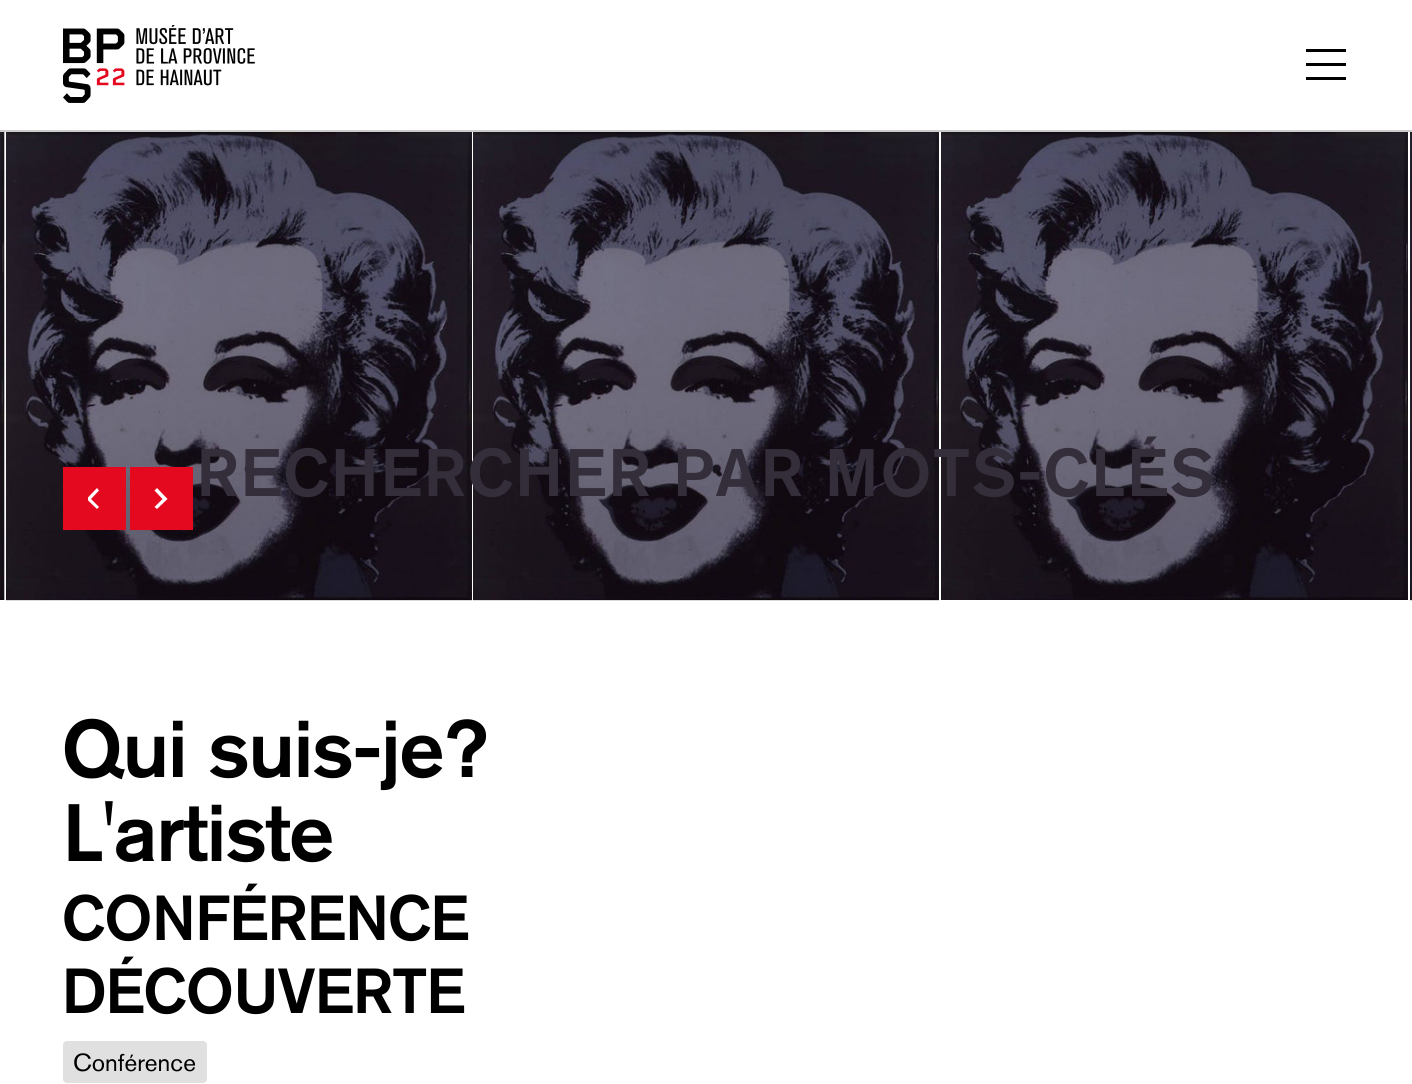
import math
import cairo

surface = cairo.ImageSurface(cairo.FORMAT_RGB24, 1412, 1084)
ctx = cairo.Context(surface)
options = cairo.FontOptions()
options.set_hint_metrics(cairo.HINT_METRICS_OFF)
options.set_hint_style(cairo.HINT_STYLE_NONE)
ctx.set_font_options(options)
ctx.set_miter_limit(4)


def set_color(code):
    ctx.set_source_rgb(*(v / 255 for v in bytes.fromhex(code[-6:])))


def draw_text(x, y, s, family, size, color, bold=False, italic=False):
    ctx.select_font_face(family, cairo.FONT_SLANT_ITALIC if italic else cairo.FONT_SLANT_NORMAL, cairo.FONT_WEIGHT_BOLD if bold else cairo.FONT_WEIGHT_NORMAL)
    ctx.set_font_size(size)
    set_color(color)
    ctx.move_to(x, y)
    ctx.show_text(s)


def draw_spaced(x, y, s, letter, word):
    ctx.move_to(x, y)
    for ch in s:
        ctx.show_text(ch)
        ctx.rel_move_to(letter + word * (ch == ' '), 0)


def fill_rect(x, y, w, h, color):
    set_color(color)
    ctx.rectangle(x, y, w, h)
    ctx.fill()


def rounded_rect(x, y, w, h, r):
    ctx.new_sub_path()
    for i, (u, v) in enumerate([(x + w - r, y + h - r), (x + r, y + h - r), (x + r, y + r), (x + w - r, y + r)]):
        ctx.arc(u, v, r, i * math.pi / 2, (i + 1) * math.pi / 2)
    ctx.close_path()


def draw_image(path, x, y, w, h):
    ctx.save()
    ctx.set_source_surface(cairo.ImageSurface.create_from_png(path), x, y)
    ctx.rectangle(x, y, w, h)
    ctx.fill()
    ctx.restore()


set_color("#ffffff")
ctx.paint()
fill_rect(0, 130, 1412, 2, "#cccccc")
draw_image("assets/img1.png", 63, 25, 192, 78)
set_color("#000000")
ctx.new_path()
ctx.move_to(1346, 80)
ctx.line_to(1306, 80)
ctx.line_to(1306, 77)
ctx.line_to(1346, 77)
ctx.close_path()
ctx.move_to(1346, 66)
ctx.line_to(1306, 66)
ctx.line_to(1306, 63)
ctx.line_to(1346, 63)
ctx.close_path()
ctx.move_to(1346, 52)
ctx.line_to(1306, 52)
ctx.line_to(1306, 49)
ctx.line_to(1346, 49)
ctx.close_path()
ctx.fill()
draw_image("assets/img3.png", 6, 132, 466, 469)
draw_image("assets/img4.png", 473, 132, 466, 469)
draw_image("assets/img5.png", 941, 132, 467, 468)
ctx.select_font_face("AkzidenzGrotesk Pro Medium")
ctx.set_font_size(66.5)
set_color("#332e3a")
draw_spaced(196, 496, "RECHERCHER PAR MOTS-CLÉS", 1.4, 0)
draw_image("assets/img2.png", 0, 132, 5, 468)
draw_image("assets/img6.png", 1410, 132, 2, 469)
fill_rect(63, 467, 63, 63, "#e50920")
ctx.save()
ctx.rectangle(88, 488, 14, 21)
ctx.clip()
set_color("#ffffff")
ctx.new_path()
ctx.move_to(99, 490.5)
ctx.line_to(91, 499)
ctx.line_to(99, 507)
ctx.line_to(97, 509)
ctx.line_to(86.5, 499)
ctx.line_to(97, 488)
ctx.close_path()
ctx.fill()
ctx.restore()
fill_rect(130, 467, 63, 63, "#e50920")
set_color("#ffffff")
ctx.new_path()
ctx.move_to(154.5, 507)
ctx.line_to(162.5, 499)
ctx.line_to(154.5, 490.5)
ctx.line_to(157, 488)
ctx.line_to(167.5, 499)
ctx.line_to(157, 509)
ctx.close_path()
ctx.fill()
ctx.set_font_size(80.5)
set_color("#000000")
draw_spaced(62, 777, "Qui suis-je?", -1.6, 0)
draw_spaced(62, 861, "L'artiste", -1.6, 0)
ctx.set_font_size(63)
draw_spaced(62, 940, "CONFÉRENCE", -1.25, 0)
draw_spaced(62, 1013, "DÉCOUVERTE", -1.25, 0)
set_color("#e0e0e0")
rounded_rect(63, 1041, 144, 42, 4)
ctx.fill()
draw_text(73, 1071, "Conférence", "AkzidenzGrotesk Pro", 24.5, "#000000")
surface.write_to_png("output.png")
